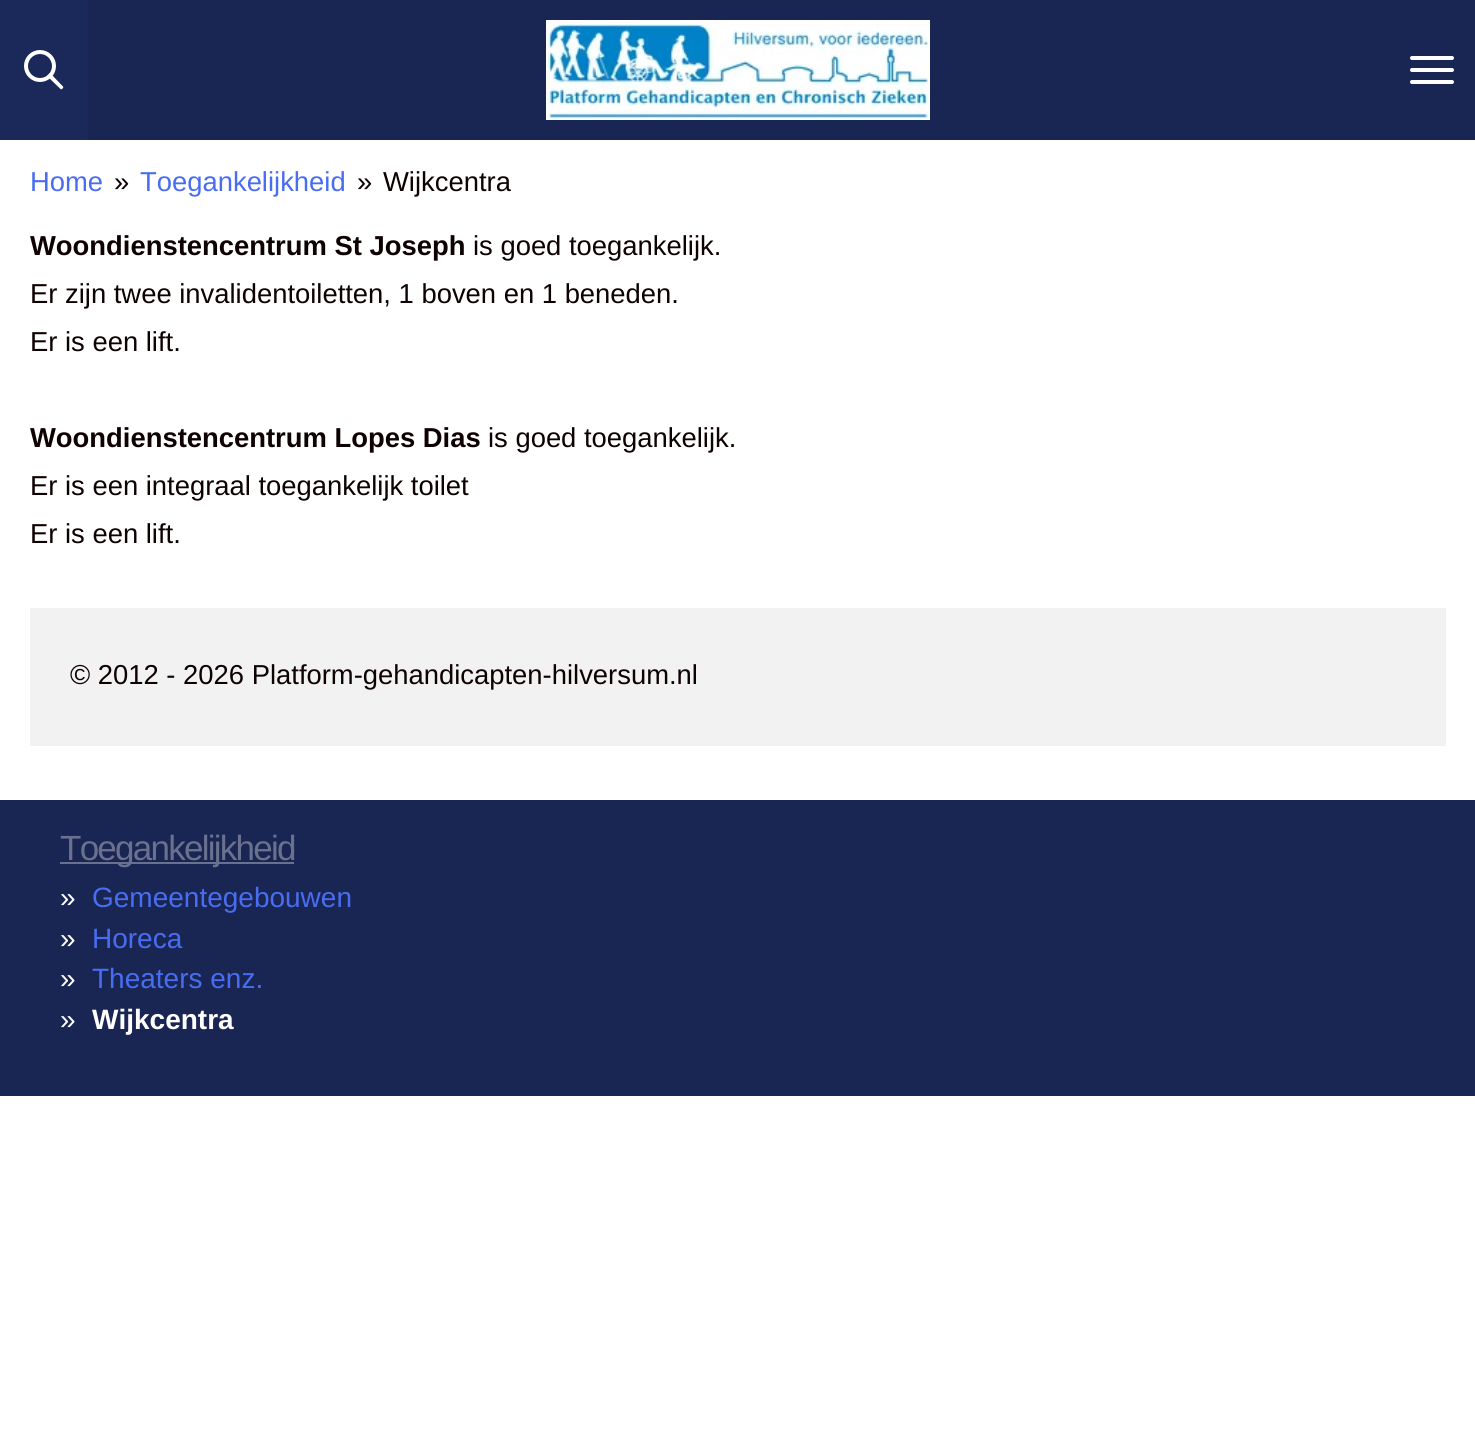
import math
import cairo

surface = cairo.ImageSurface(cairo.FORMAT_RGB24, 1475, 1435)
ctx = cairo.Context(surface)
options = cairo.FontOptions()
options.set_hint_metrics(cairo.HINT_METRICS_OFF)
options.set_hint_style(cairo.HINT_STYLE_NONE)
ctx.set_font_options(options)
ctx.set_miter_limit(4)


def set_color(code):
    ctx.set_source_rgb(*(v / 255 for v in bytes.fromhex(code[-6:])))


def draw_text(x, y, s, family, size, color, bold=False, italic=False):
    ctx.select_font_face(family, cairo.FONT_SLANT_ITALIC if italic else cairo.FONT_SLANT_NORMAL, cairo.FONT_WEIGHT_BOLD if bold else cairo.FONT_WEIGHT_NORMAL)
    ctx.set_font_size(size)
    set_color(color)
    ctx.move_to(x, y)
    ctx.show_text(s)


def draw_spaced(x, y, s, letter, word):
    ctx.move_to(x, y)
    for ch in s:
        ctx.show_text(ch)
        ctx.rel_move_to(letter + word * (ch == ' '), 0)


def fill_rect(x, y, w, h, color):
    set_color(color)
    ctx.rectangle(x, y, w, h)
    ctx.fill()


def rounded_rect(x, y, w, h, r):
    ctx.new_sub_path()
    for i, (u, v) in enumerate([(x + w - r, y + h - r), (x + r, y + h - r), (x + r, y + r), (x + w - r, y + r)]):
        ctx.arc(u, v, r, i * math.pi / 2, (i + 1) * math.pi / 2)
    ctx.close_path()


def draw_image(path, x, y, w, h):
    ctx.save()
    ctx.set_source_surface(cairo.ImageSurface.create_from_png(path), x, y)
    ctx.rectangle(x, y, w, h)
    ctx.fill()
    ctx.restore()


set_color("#ffffff")
ctx.paint()
fill_rect(0, 0, 88, 140, "#1b295a")
ctx.arc(40, 66, 14, 0, 2 * math.pi)
set_color("#ffffff")
ctx.set_line_width(4)
ctx.stroke()
ctx.new_path()
ctx.move_to(50, 73)
ctx.line_to(62.5, 86)
ctx.curve_to(63.5, 86.5, 63.5, 88, 62.5, 88.5)
ctx.curve_to(62, 89.5, 60.5, 89.5, 60, 88.5)
ctx.line_to(47, 76)
ctx.close_path()
ctx.fill()
fill_rect(88, 0, 1387, 140, "#192552")
set_color("#ffffff")
rounded_rect(1410, 68, 44, 4, 2)
ctx.fill()
rounded_rect(1410, 56, 44, 4, 2)
ctx.fill()
rounded_rect(1410, 80, 44, 4, 2)
ctx.fill()
draw_image("assets/img1.png", 546, 20, 384, 100)
draw_text(30, 191, "Home", "Liberation Sans", 27.4, "#496df1")
draw_text(114, 191, "»", "Liberation Sans", 27.4, "#0e0101")
draw_text(140, 191, "Toegankelijkheid", "Liberation Sans", 27.4, "#496df1")
draw_text(357, 191, "»", "Liberation Sans", 27.4, "#0e0101")
draw_text(383, 191, "Wijkcentra", "Liberation Sans", 27.4, "#0e0101")
draw_text(30, 255, "Woondienstencentrum St Joseph", "Liberation Sans", 27.4, "#0e0101", bold=True)
draw_text(473, 255, "is goed toegankelijk.", "Liberation Sans", 27.4, "#0e0101")
draw_text(30, 303, "Er zijn twee invalidentoiletten, 1 boven en 1 beneden.", "Liberation Sans", 27.4, "#0e0101")
draw_text(30, 351, "Er is een lift.", "Liberation Sans", 27.4, "#0e0101")
draw_text(30, 447, "Woondienstencentrum Lopes Dias", "Liberation Sans", 27.4, "#0e0101", bold=True)
draw_text(488, 447, "is goed toegankelijk.", "Liberation Sans", 27.4, "#0e0101")
draw_text(30, 495, "Er is een integraal toegankelijk toilet", "Liberation Sans", 27.4, "#0e0101")
draw_text(30, 543, "Er is een lift.", "Liberation Sans", 27.4, "#0e0101")
fill_rect(30, 608, 1416, 138, "#f2f2f2")
draw_text(70, 684, "© 2012 - 2026 Platform-gehandicapten-hilversum.nl", "Liberation Sans", 27.4, "#0e0101")
fill_rect(0, 800, 1475, 296, "#192552")
fill_rect(60, 862, 234, 2, "#6a718f")
ctx.set_font_size(35)
draw_spaced(60, 860, "Toegankelijkheid", -1.75, 0)
draw_text(60, 907, "»", "Liberation Sans", 28, "#ffffff")
draw_text(92, 907, "Gemeentegebouwen", "Liberation Sans", 28, "#496df1")
draw_text(60, 948, "»", "Liberation Sans", 28, "#ffffff")
draw_text(92, 948, "Horeca", "Liberation Sans", 28, "#496df1")
draw_text(60, 988, "»", "Liberation Sans", 28, "#ffffff")
draw_text(92, 988, "Theaters enz.", "Liberation Sans", 28, "#496df1")
draw_text(60, 1029, "»", "Liberation Sans", 28, "#ffffff")
draw_text(92, 1029, "Wijkcentra", "Liberation Sans", 28, "#ffffff", bold=True)
surface.write_to_png("output.png")
